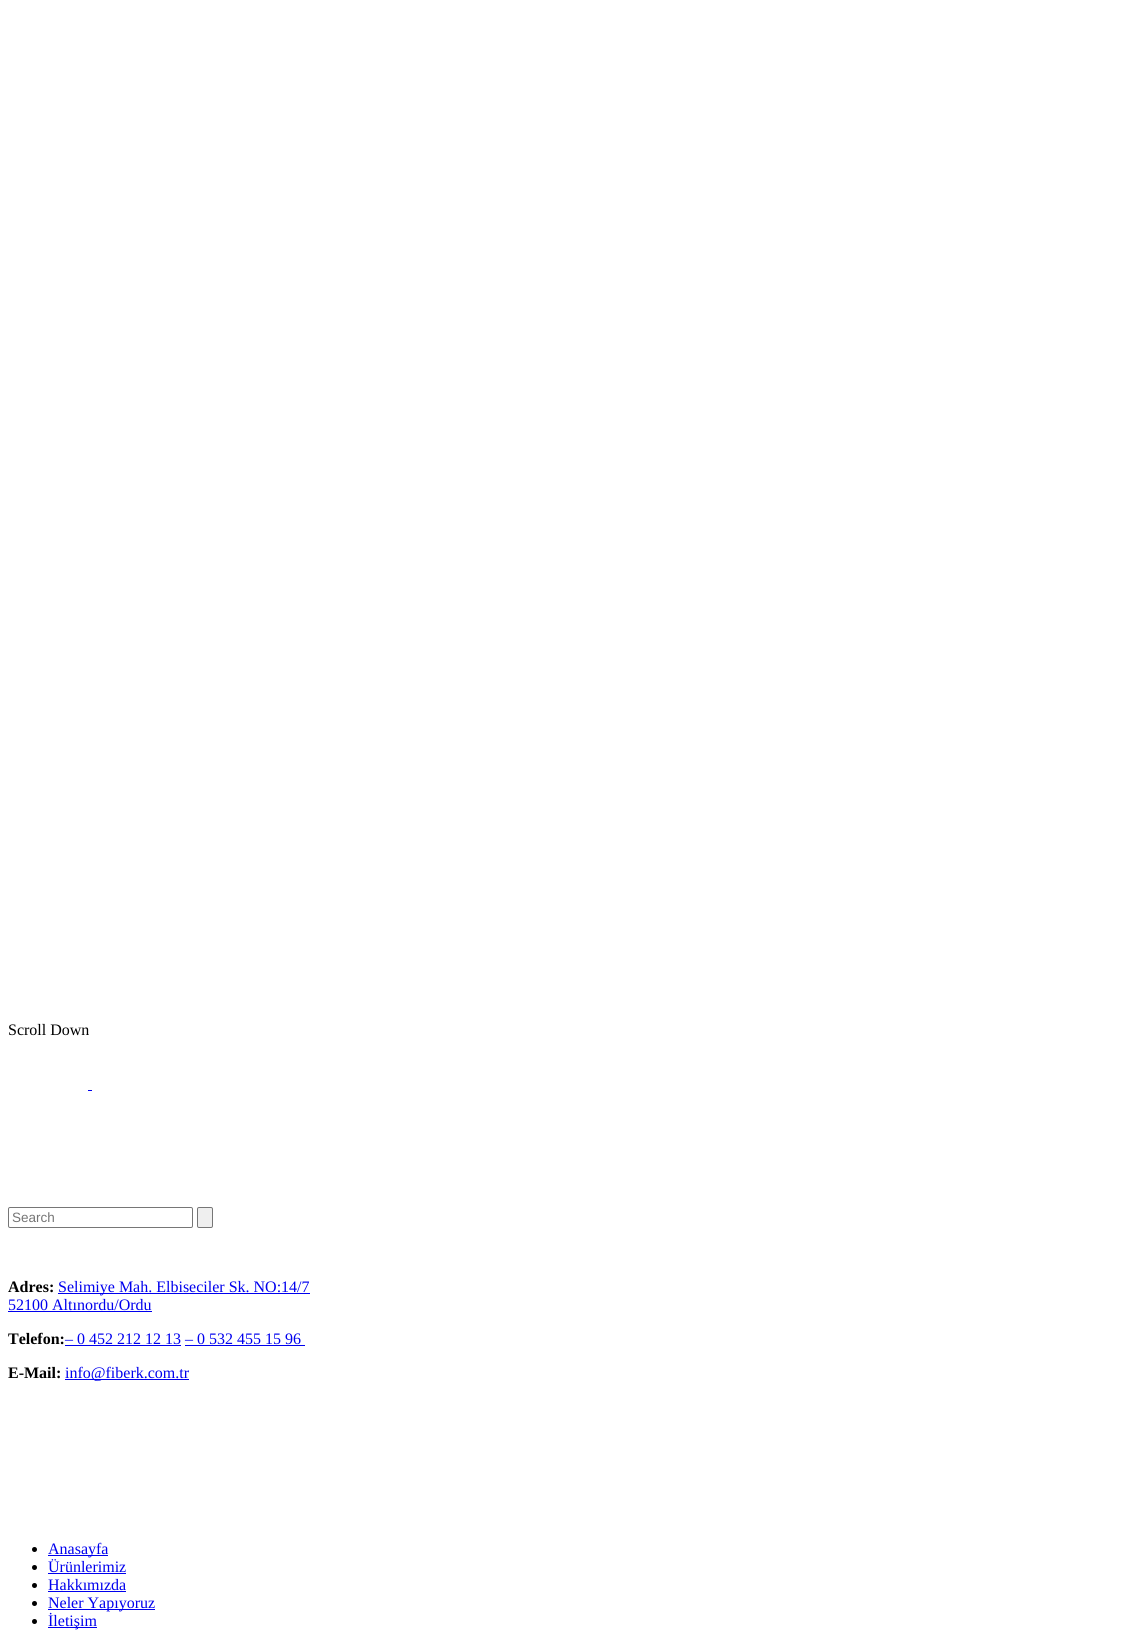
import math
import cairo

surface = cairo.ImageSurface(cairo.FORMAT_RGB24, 1132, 1646)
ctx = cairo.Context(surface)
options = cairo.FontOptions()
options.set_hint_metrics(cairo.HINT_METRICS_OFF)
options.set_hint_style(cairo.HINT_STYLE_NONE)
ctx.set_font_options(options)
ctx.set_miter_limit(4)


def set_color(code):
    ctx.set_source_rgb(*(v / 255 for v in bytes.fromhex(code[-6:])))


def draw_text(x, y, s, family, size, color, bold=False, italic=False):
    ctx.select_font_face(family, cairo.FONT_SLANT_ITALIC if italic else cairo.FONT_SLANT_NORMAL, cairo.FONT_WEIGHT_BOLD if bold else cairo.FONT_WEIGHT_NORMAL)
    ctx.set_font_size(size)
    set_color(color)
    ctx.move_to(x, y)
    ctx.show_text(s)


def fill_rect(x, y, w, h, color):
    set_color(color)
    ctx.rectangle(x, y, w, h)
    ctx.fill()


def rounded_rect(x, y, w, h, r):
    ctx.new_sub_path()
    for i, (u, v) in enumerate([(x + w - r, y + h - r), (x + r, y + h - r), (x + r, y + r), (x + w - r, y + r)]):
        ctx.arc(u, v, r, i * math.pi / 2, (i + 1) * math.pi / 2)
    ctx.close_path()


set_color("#ffffff")
ctx.paint()
draw_text(8, 1035, "Scroll Down", "Liberation Serif", 16, "#000000")
fill_rect(88, 1090, 4, 1, "#0000ee")
rounded_rect(8.5, 1207.5, 184, 20, 1.5)
set_color("#767676")
ctx.set_line_width(1)
ctx.stroke()
draw_text(12, 1222, "Search", "Liberation Sans", 13.5, "#757575")
set_color("#efefef")
rounded_rect(197.5, 1207.5, 15, 20, 1.5)
ctx.fill_preserve()
set_color("#767676")
ctx.stroke()
draw_text(8, 1292, "Adres:", "Liberation Serif", 16, "#000000", bold=True)
fill_rect(58, 1293, 252, 1, "#0000ee")
draw_text(58, 1292, "Selimiye Mah. Elbiseciler Sk. NO:14/7", "Liberation Serif", 16, "#0000ee")
draw_text(8, 1310, "52100 Altınordu/Ordu", "Liberation Serif", 16, "#0000ee")
fill_rect(8, 1311, 144, 1, "#0000ee")
draw_text(8, 1344, "Telefon:", "Liberation Serif", 16, "#000000", bold=True)
draw_text(65, 1344, "– 0 452 212 12 13 – 0 532 455 15 96", "Liberation Serif", 16, "#0000ee")
fill_rect(65, 1345, 116, 1, "#0000ee")
fill_rect(185, 1345, 120, 1, "#0000ee")
draw_text(8, 1378, "E-Mail:", "Liberation Serif", 16, "#000000", bold=True)
fill_rect(65, 1379, 124, 1, "#0000ee")
draw_text(65, 1378, "info@fiberk.com.tr", "Liberation Serif", 16, "#0000ee")
set_color("#000000")
ctx.new_path()
ctx.arc(34.5, 1549.5, 2.5, 0, 2 * math.pi)
ctx.fill()
fill_rect(48, 1555, 60, 1, "#0000ee")
draw_text(48, 1554, "Anasayfa", "Liberation Serif", 16, "#0000ee")
set_color("#000000")
ctx.new_path()
ctx.arc(34.5, 1567.5, 2.5, 0, 2 * math.pi)
ctx.fill()
draw_text(48, 1572, "Ürünlerimiz", "Liberation Serif", 16, "#0000ee")
fill_rect(48, 1573, 78, 1, "#0000ee")
set_color("#000000")
ctx.new_path()
ctx.arc(34.5, 1585.5, 2.5, 0, 2 * math.pi)
ctx.fill()
draw_text(48, 1590, "Hakkımızda", "Liberation Serif", 16, "#0000ee")
fill_rect(48, 1591, 78, 1, "#0000ee")
set_color("#000000")
ctx.new_path()
ctx.arc(34.5, 1603.5, 2.5, 0, 2 * math.pi)
ctx.fill()
fill_rect(48, 1609, 107, 1, "#0000ee")
draw_text(48, 1608, "Neler Yapıyoruz", "Liberation Serif", 16, "#0000ee")
set_color("#000000")
ctx.new_path()
ctx.arc(34.5, 1621.5, 2.5, 0, 2 * math.pi)
ctx.fill()
fill_rect(48, 1627, 49, 1, "#0000ee")
draw_text(48, 1626, "İletişim", "Liberation Serif", 16, "#0000ee")
surface.write_to_png("output.png")
